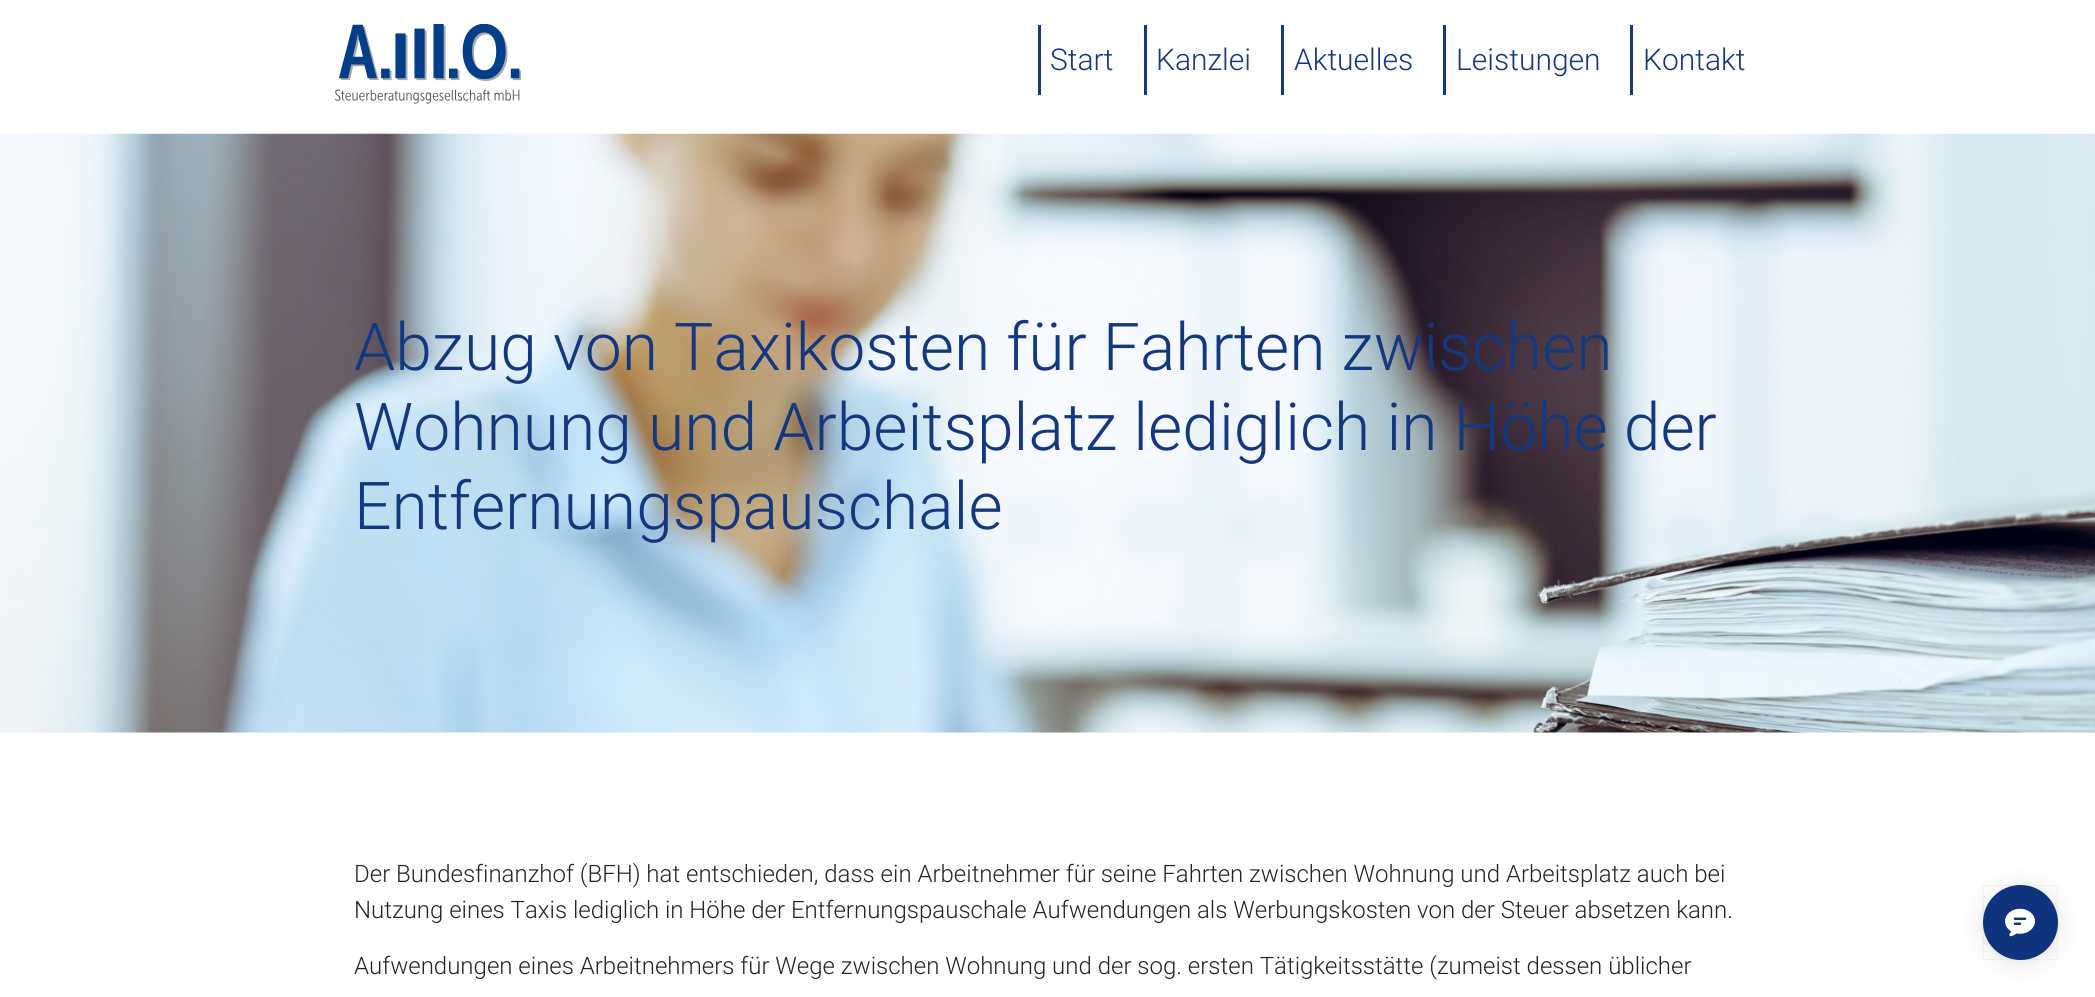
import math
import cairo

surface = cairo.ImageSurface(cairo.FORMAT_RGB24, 2095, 997)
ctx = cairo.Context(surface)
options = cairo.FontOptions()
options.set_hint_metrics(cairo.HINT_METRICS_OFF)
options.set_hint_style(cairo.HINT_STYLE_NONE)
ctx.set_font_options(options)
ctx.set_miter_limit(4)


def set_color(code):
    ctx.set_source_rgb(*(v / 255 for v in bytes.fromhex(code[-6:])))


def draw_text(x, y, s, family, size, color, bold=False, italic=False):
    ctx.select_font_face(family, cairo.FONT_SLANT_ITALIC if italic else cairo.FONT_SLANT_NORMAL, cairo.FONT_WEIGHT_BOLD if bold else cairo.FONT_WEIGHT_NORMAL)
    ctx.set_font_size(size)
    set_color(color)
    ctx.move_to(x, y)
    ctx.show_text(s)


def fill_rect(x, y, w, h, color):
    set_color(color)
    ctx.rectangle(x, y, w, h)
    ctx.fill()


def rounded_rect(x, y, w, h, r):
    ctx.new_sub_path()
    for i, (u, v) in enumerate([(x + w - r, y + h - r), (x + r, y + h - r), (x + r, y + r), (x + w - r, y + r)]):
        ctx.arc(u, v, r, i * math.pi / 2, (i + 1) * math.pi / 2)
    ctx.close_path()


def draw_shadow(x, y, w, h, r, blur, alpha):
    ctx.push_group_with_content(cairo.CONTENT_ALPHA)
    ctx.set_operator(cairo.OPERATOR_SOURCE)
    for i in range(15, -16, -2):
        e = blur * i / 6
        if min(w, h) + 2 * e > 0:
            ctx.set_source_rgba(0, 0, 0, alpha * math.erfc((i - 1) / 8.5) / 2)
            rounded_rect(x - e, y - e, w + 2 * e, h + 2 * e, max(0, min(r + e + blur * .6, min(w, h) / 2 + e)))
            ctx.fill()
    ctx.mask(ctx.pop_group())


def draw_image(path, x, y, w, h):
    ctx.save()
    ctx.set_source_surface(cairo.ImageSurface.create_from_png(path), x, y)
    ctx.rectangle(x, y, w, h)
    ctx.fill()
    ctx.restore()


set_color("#ffffff")
ctx.paint()
draw_image("assets/img1.png", 335, 24, 186, 80)
fill_rect(1038, 25, 3, 70, "#14387f")
draw_text(1050, 70, "Start", "Roboto Light", 30, "#14387f")
fill_rect(1144, 25, 3, 70, "#14387f")
draw_text(1156, 70, "Kanzlei", "Roboto Light", 30, "#14387f")
fill_rect(1281, 25, 3, 70, "#14387f")
draw_text(1294, 70, "Aktuelles", "Roboto Light", 30, "#14387f")
fill_rect(1443, 25, 3, 70, "#14387f")
draw_text(1456, 70, "Leistungen", "Roboto Light", 30, "#14387f")
fill_rect(1630, 25, 3, 70, "#14387f")
draw_text(1643, 70, "Kontakt", "Roboto Light", 30, "#14387f")
draw_image("assets/img2.png", 0, 133, 2095, 600)
draw_text(354, 370, "Abzug von Taxikosten für Fahrten zwischen", "Roboto Light", 66, "#14387f")
draw_text(354, 450, "Wohnung und Arbeitsplatz lediglich in Höhe der", "Roboto Light", 66, "#14387f")
draw_text(354, 529, "Entfernungspauschale", "Roboto Light", 66, "#14387f")
draw_text(354, 882, "Der Bundesfinanzhof (BFH) hat entschieden, dass ein Arbeitnehmer für seine Fahrten zwischen Wohnung und Arbeitsplatz auch bei", "Roboto Light", 24, "#212529")
draw_text(354, 918, "Nutzung eines Taxis lediglich in Höhe der Entfernungspauschale Aufwendungen als Werbungskosten von der Steuer absetzen kann.", "Roboto Light", 24, "#212529")
draw_text(354, 974, "Aufwendungen eines Arbeitnehmers für Wege zwischen Wohnung und der sog. ersten Tätigkeitsstätte (zumeist dessen üblicher", "Roboto Light", 24, "#212529")
set_color("#000000")
draw_shadow(1983, 888, 75, 75, 37.5, 15, 0.08)
draw_shadow(1983, 886, 75, 75, 37.5, 4, 0.06)
set_color("#0d347c")
ctx.arc(2020.5, 922.5, 37.5, 0, 2 * math.pi)
ctx.fill()
ctx.rectangle(1983.5, 885.5, 74, 74)
ctx.set_source_rgba(0, 0, 0, 0.04)
ctx.set_line_width(1)
ctx.stroke()
draw_image("assets/img3.png", 2005, 908, 30, 29)
surface.write_to_png("output.png")
